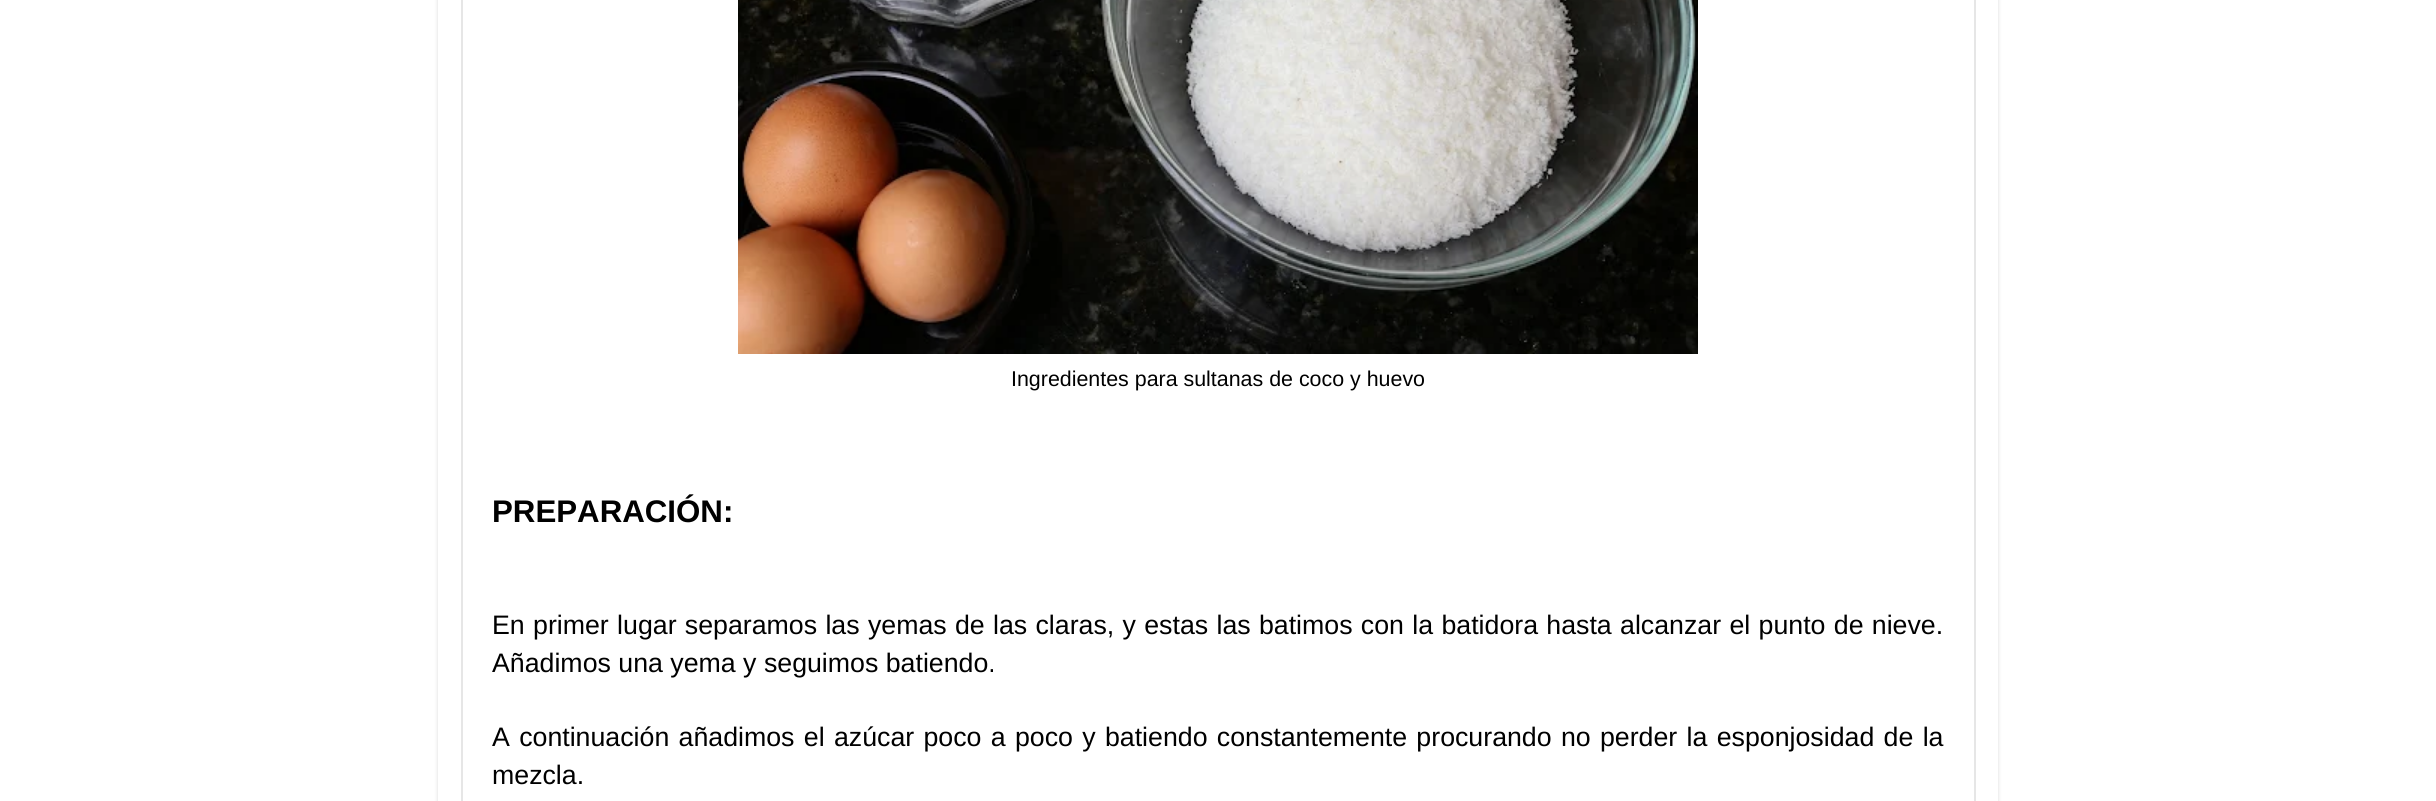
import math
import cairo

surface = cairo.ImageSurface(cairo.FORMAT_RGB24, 2436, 801)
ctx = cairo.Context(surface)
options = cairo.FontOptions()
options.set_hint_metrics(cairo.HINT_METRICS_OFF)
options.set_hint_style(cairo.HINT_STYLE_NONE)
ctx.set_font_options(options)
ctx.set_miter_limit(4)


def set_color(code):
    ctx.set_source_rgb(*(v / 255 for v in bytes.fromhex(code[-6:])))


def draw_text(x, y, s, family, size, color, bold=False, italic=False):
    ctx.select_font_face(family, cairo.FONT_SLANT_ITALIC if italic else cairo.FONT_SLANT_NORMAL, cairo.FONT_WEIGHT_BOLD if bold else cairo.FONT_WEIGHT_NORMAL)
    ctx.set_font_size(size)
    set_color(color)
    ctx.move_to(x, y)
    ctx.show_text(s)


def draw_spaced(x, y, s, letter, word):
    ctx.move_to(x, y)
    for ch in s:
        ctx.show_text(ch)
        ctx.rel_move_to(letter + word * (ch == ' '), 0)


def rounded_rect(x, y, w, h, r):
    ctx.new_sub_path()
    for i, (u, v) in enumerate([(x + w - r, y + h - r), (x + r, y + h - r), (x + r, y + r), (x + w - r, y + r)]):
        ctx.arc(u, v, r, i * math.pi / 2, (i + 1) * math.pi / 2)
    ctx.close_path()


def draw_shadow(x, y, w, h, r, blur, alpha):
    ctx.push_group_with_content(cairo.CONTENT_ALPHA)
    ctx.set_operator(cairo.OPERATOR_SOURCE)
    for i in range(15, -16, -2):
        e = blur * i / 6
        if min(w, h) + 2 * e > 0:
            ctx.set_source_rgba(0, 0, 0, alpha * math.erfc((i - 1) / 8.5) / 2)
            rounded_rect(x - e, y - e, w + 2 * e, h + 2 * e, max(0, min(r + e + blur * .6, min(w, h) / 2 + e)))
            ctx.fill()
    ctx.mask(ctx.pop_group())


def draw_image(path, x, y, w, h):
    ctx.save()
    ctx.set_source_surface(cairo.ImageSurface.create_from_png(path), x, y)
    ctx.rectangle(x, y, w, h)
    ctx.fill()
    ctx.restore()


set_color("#ffffff")
ctx.paint()
ctx.save()
ctx.set_fill_rule(cairo.FILL_RULE_EVEN_ODD)
ctx.new_path()
ctx.move_to(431, 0)
ctx.line_to(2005, 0)
ctx.line_to(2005, 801)
ctx.line_to(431, 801)
ctx.close_path()
ctx.move_to(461, -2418)
ctx.line_to(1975, -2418)
ctx.curve_to(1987.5, -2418, 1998, -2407.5, 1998, -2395)
ctx.line_to(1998, 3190)
ctx.curve_to(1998, 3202.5, 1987.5, 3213, 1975, 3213)
ctx.line_to(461, 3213)
ctx.curve_to(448.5, 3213, 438, 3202.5, 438, 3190)
ctx.line_to(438, -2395)
ctx.curve_to(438, -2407.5, 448.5, -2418, 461, -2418)
ctx.close_path()
ctx.clip()
set_color("#000000")
draw_shadow(438, -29, 1560, 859, 23, 2, 0.15)
ctx.restore()
ctx.rectangle(462, -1, 1513, 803)
set_color("#e6e6e6")
ctx.stroke()
draw_image("assets/img1.png", 738, 0, 960, 354)
draw_text(1011, 386, "Ingredientes para sultanas de coco y huevo", "Liberation Sans", 21.4, "#000000")
draw_text(492, 522, "PREPARACIÓN:", "Liberation Sans", 31.25, "#000000", bold=True)
ctx.select_font_face("Liberation Sans")
ctx.set_font_size(26.73)
draw_spaced(492, 634, "En primer lugar separamos las yemas de las claras, y estas las batimos con la batidora hasta alcanzar el punto de nieve.", 0, 0.9)
draw_text(492, 672, "Añadimos una yema y seguimos batiendo.", "Liberation Sans", 26.73, "#000000")
draw_spaced(492, 746, "A continuación añadimos el azúcar poco a poco y batiendo constantemente procurando no perder la esponjosidad de la", 0, 1.9)
draw_text(492, 784, "mezcla.", "Liberation Sans", 26.73, "#000000")
surface.write_to_png("output.png")
